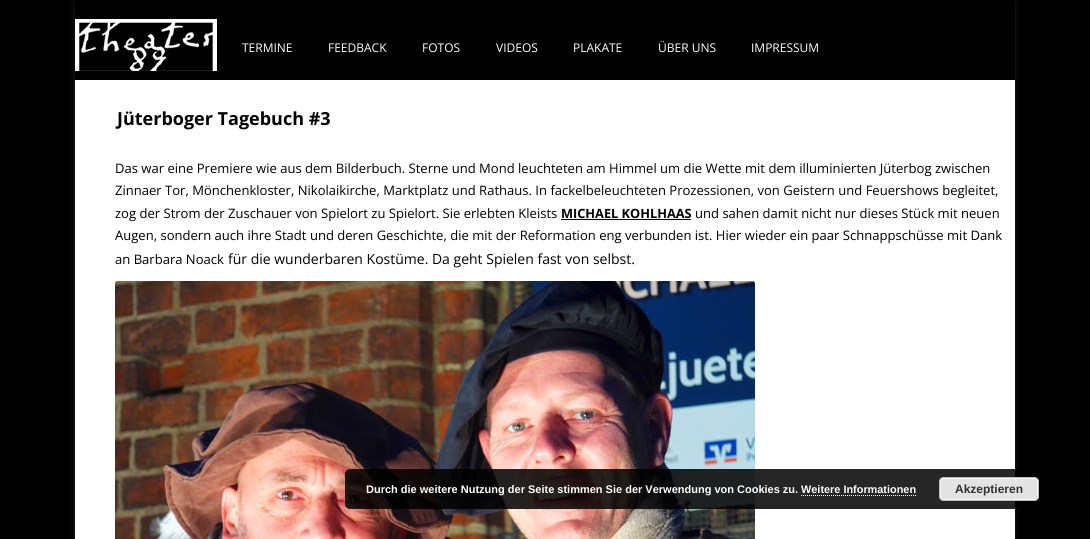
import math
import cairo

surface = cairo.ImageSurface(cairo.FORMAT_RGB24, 1090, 539)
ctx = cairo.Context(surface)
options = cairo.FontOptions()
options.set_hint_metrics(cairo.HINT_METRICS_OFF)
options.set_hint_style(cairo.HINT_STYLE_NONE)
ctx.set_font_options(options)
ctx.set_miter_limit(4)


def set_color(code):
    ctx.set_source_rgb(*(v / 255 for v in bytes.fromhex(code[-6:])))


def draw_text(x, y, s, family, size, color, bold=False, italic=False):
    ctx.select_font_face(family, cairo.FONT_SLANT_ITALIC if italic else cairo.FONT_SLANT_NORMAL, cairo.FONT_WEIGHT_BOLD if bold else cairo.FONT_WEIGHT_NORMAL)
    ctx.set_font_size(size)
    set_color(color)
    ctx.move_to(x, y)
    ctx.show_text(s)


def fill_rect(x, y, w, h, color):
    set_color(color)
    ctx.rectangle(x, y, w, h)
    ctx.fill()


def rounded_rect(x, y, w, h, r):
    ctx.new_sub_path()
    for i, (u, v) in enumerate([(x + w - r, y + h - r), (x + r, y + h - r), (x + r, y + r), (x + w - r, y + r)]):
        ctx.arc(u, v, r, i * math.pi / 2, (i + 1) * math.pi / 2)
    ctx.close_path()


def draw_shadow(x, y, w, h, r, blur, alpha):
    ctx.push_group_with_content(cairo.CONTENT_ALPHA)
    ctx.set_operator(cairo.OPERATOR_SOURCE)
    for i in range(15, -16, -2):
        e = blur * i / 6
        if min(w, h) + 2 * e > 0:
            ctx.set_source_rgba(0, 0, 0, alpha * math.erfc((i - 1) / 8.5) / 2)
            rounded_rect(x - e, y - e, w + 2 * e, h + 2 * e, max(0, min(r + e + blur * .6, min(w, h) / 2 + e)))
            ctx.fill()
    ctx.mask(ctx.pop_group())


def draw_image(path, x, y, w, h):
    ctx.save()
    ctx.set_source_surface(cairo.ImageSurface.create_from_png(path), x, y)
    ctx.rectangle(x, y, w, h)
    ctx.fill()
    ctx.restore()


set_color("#000000")
ctx.paint()
ctx.save()
ctx.set_fill_rule(cairo.FILL_RULE_EVEN_ODD)
ctx.new_path()
ctx.move_to(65, 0)
ctx.line_to(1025, 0)
ctx.line_to(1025, 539)
ctx.line_to(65, 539)
ctx.close_path()
ctx.move_to(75, 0)
ctx.line_to(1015, 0)
ctx.line_to(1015, 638)
ctx.line_to(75, 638)
ctx.close_path()
ctx.clip()
set_color("#646464")
draw_shadow(75, 2, 940, 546, 0, 3, 0.3)
ctx.restore()
draw_image("assets/img1.png", 75, 19, 142, 52)
draw_text(242, 52, "TERMINE", "Open Sans", 12, "#ffffff")
draw_text(328, 52, "FEEDBACK", "Open Sans", 12, "#ffffff")
draw_text(422, 52, "FOTOS", "Open Sans", 12, "#ffffff")
draw_text(496, 52, "VIDEOS", "Open Sans", 12, "#ffffff")
draw_text(573, 52, "PLAKATE", "Open Sans", 12, "#ffffff")
draw_text(658, 52, "ÜBER UNS", "Open Sans", 12, "#ffffff")
draw_text(751, 52, "IMPRESSUM", "Open Sans", 12, "#ffffff")
fill_rect(75, 80, 940, 459, "#ffffff")
draw_text(117, 125, "Jüterboger Tagebuch #3", "Open Sans", 18, "#000000", bold=True)
draw_text(115, 173, "Das war eine Premiere wie aus dem Bilderbuch. Sterne und Mond leuchteten am Himmel um die Wette mit dem illuminierten Jüterbog zwischen", "Open Sans", 13.05, "#000000")
draw_text(115, 195, "Zinnaer Tor, Mönchenkloster, Nikolaikirche, Marktplatz und Rathaus. In fackelbeleuchteten Prozessionen, von Geistern und Feuershows begleitet,", "Open Sans", 13.05, "#000000")
draw_text(115, 218, "zog der Strom der Zuschauer von Spielort zu Spielort. Sie erlebten Kleists", "Open Sans", 13.05, "#000000")
draw_text(561, 218, "MICHAEL KOHLHAAS", "Open Sans", 12.75, "#000000", bold=True)
fill_rect(561, 219, 130, 1, "#000000")
draw_text(695, 218, "und sahen damit nicht nur dieses Stück mit neuen", "Open Sans", 13.05, "#000000")
draw_text(115, 240, "Augen, sondern auch ihre Stadt und deren Geschichte, die mit der Reformation eng verbunden ist. Hier wieder ein paar Schnappschüsse mit Dank", "Open Sans", 13.05, "#000000")
draw_text(115, 264, "an Barbara Noack", "Open Sans", 13.05, "#000000")
draw_text(228, 264, "für die wunderbaren Kostüme. Da geht Spielen fast von selbst.", "Open Sans", 14, "#000000")
draw_image("assets/img2.png", 115, 281, 640, 258)
ctx.set_source_rgba(0, 0, 0, 0.85)
rounded_rect(345, 469, 715, 40, 5)
ctx.fill()
draw_text(366, 493, "Durch die weitere Nutzung der Seite stimmen Sie der Verwendung von Cookies zu.", "Liberation Sans", 11, "#ffffff", bold=True)
draw_text(801, 493, "Weitere Informationen", "Liberation Sans", 10.9, "#ffffff", bold=True)
ctx.new_path()
ctx.move_to(801, 495.5)
ctx.line_to(916, 495.5)
ctx.set_line_width(1)
ctx.set_dash([1, 1])
ctx.stroke()
set_color("#e3e3e3")
rounded_rect(939, 477, 100, 24, 5)
ctx.fill()
rounded_rect(940.5, 478.5, 97, 21, 3.5)
set_color("#f6f6f6")
ctx.set_dash([])
ctx.stroke()
rounded_rect(939.5, 477.5, 99, 23, 4.5)
set_color("#bbbbbb")
ctx.stroke()
draw_text(955, 493, "Akzeptieren", "Liberation Sans", 12, "#333333", bold=True)
surface.write_to_png("output.png")
